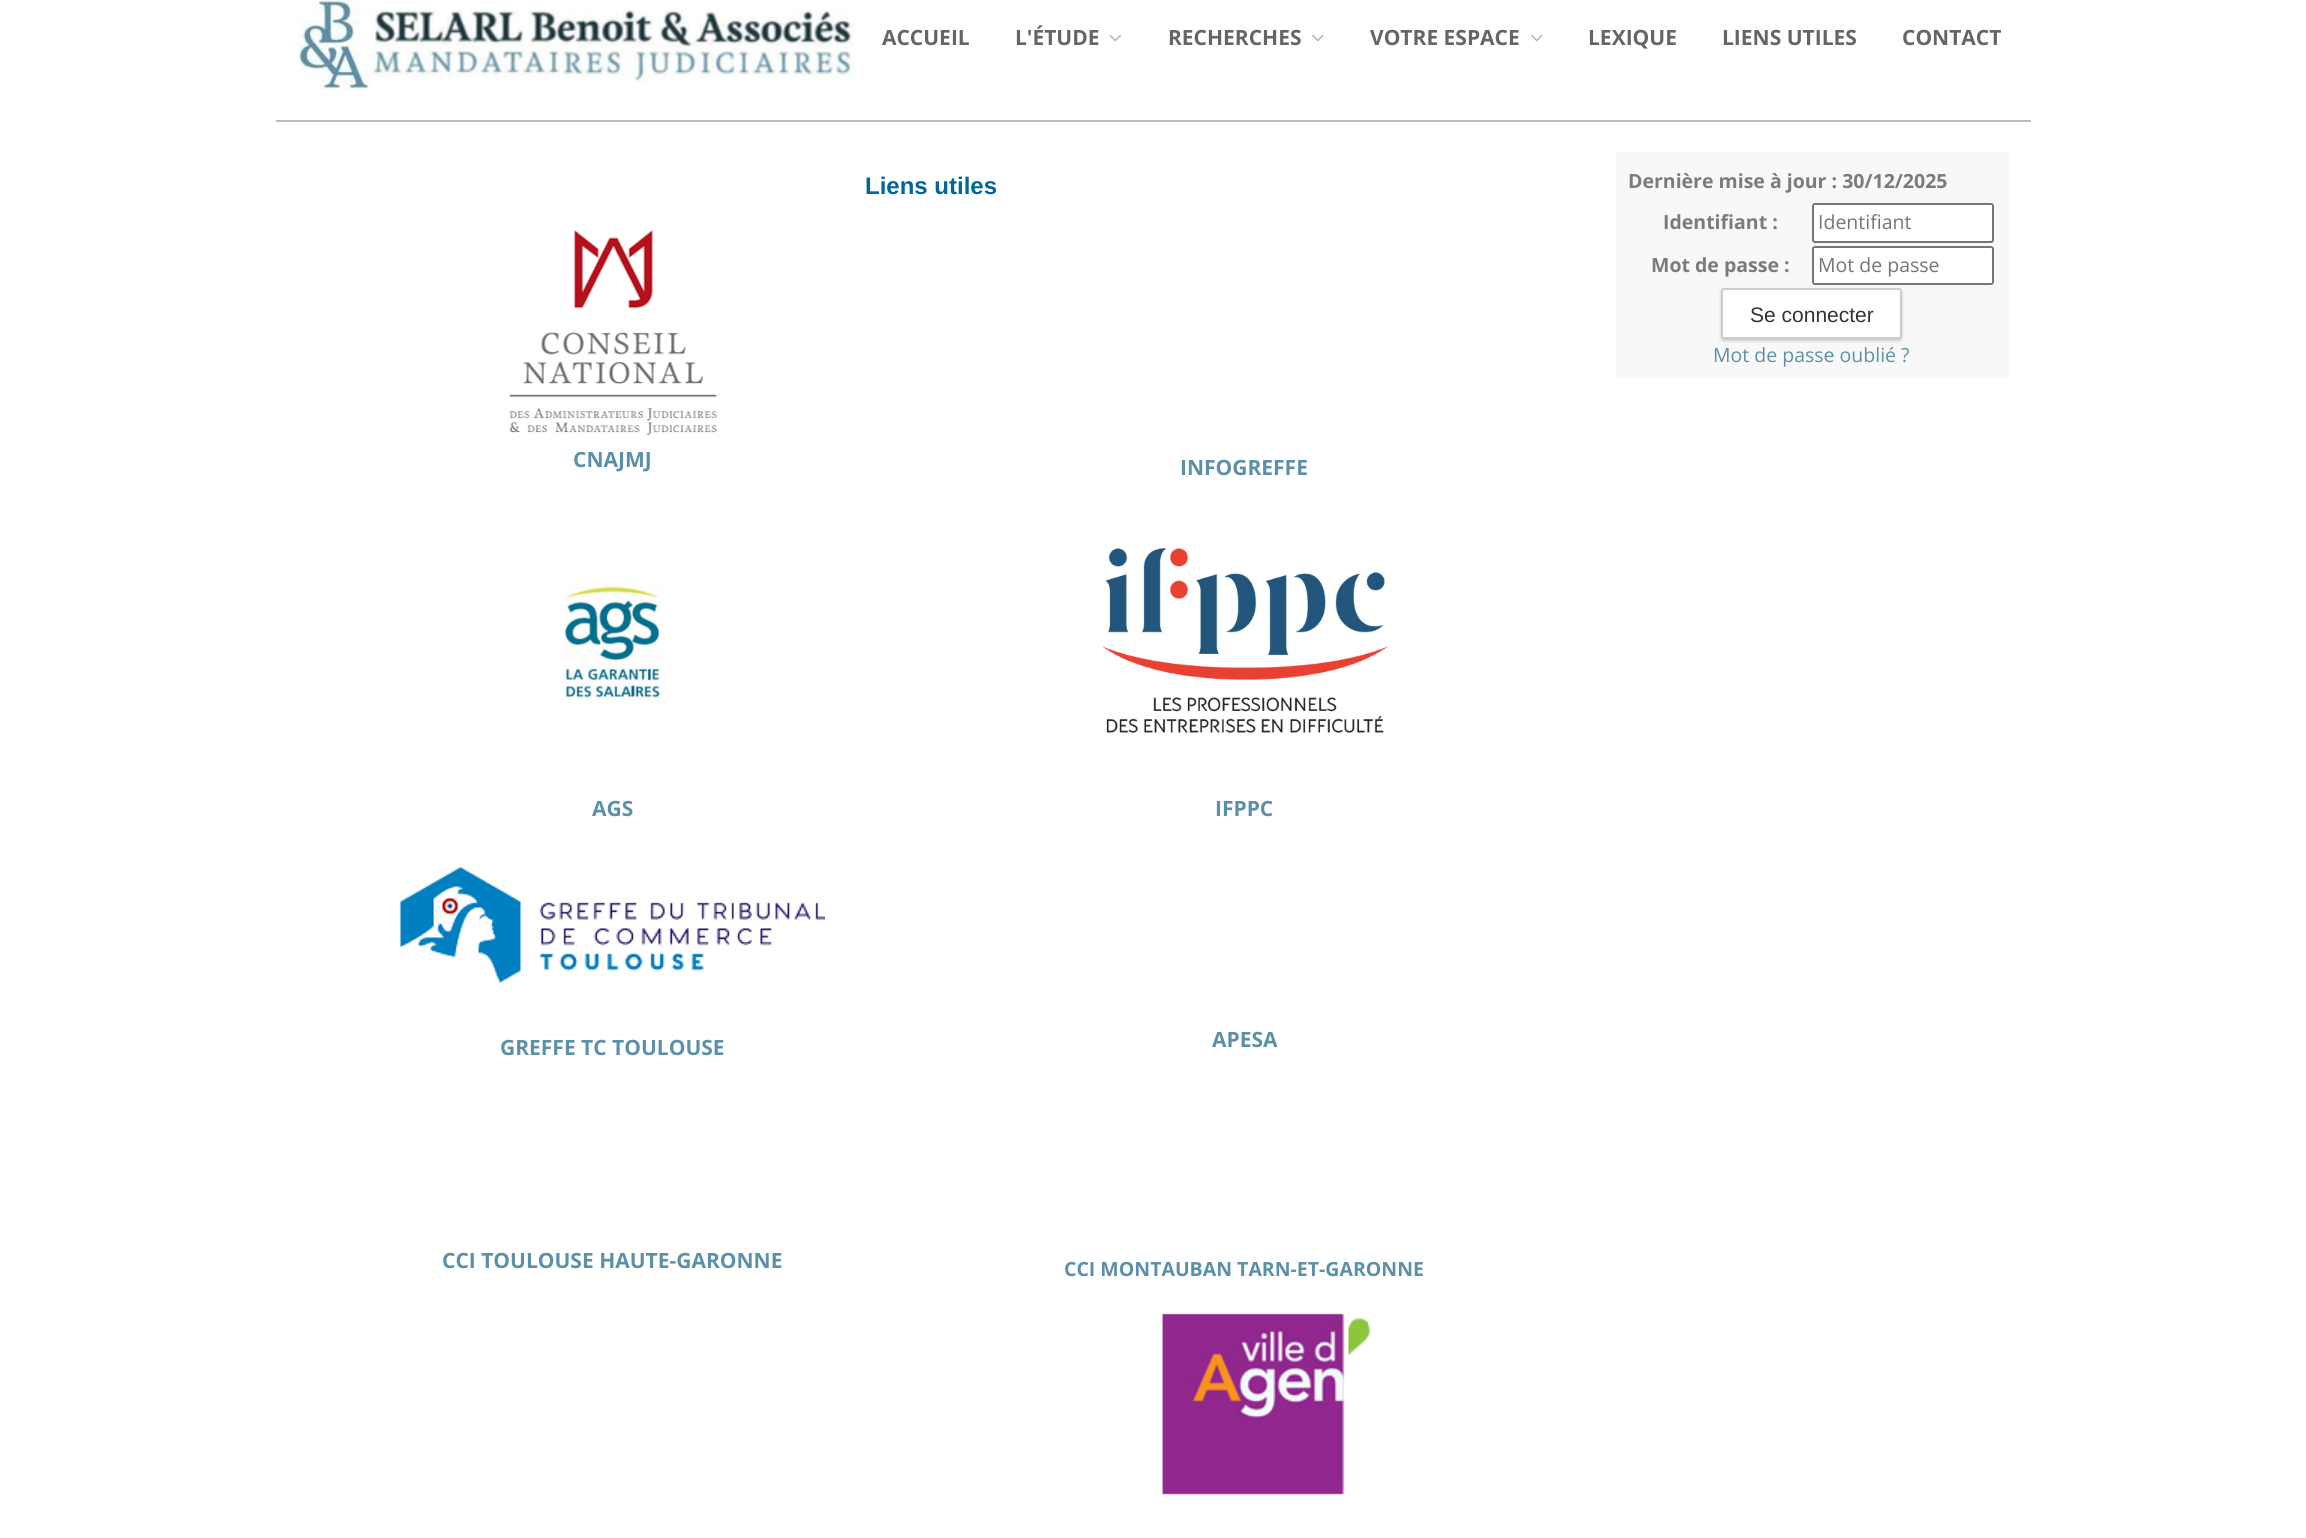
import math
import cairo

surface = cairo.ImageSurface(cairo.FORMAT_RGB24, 2306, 1538)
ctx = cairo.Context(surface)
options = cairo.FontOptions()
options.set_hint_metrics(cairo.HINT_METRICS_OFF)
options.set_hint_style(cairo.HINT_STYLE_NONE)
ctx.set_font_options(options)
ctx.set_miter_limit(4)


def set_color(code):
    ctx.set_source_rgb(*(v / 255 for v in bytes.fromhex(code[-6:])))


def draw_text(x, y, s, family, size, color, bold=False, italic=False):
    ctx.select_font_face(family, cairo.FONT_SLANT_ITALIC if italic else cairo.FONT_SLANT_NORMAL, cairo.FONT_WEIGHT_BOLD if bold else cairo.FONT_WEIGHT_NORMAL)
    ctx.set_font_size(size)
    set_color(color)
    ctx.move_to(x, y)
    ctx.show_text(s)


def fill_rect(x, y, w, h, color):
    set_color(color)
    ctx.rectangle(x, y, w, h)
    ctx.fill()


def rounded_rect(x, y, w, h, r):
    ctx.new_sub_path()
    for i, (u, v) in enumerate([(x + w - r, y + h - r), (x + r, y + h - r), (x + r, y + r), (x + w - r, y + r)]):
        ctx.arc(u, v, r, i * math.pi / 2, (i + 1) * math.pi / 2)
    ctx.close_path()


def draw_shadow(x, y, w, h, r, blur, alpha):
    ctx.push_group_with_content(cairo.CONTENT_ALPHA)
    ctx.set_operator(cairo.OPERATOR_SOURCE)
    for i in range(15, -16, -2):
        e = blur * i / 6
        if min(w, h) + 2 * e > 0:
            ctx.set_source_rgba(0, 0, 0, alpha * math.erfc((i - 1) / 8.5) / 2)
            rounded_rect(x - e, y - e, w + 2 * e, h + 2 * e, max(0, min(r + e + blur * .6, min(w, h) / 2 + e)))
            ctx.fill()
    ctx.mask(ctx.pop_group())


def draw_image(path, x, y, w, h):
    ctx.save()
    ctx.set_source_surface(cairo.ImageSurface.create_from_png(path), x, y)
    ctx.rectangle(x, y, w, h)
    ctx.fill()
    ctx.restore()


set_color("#ffffff")
ctx.paint()
fill_rect(276, 120, 1755, 2, "#b2bfca")
draw_image("assets/img1.png", 298, 0, 73, 90)
draw_image("assets/img2.png", 370, 9, 484, 76)
draw_text(882, 45, "ACCUEIL", "Open Sans", 21, "#656565", bold=True)
draw_text(1015, 45, "L'ÉTUDE", "Open Sans", 21, "#656565", bold=True)
draw_image("assets/img3.png", 1109, 34, 12, 8)
draw_text(1168, 45, "RECHERCHES", "Open Sans", 21, "#656565", bold=True)
draw_image("assets/img4.png", 1312, 34, 12, 8)
draw_text(1370, 45, "VOTRE ESPACE", "Open Sans", 21, "#656565", bold=True)
draw_image("assets/img4.png", 1531, 34, 12, 8)
draw_text(1588, 45, "LEXIQUE", "Open Sans", 21, "#656565", bold=True)
draw_text(1722, 45, "LIENS UTILES", "Open Sans", 21, "#656565", bold=True)
draw_text(1902, 45, "CONTACT", "Open Sans", 21, "#656565", bold=True)
draw_text(865, 194, "Liens utiles", "Liberation Sans", 24, "#006699", bold=True)
draw_image("assets/img5.png", 509, 230, 208, 206)
draw_text(573, 467, "CNAJMJ", "Open Sans", 21, "#5c90a8", bold=True)
draw_text(1180, 475, "INFOGREFFE", "Open Sans", 21, "#5c90a8", bold=True)
draw_image("assets/img6.png", 563, 585, 99, 117)
draw_image("assets/img7.png", 1101, 548, 287, 185)
draw_text(592, 816, "AGS", "Open Sans", 21, "#5c90a8", bold=True)
draw_text(1215, 816, "IFPPC", "Open Sans", 21, "#5c90a8", bold=True)
draw_image("assets/img8.png", 400, 867, 425, 116)
draw_text(500, 1055, "GREFFE TC TOULOUSE", "Open Sans", 21, "#5c90a8", bold=True)
draw_text(1212, 1047, "APESA", "Open Sans", 21, "#5c90a8", bold=True)
draw_text(442, 1268, "CCI TOULOUSE HAUTE-GARONNE", "Open Sans", 21, "#5c90a8", bold=True)
draw_text(1064, 1276, "CCI MONTAUBAN TARN-ET-GARONNE", "Open Sans", 19.5, "#5c90a8", bold=True)
draw_image("assets/img9.png", 1162, 1313, 209, 182)
fill_rect(1616, 152, 393, 226, "#f8f8f8")
draw_text(1628, 188, "Dernière mise à jour : 30/12/2025", "Open Sans", 19.5, "#7b7b7b", bold=True)
draw_text(1663, 229, "Identifiant :", "Open Sans", 19.5, "#7b7b7b", bold=True)
set_color("#ffffff")
rounded_rect(1813, 204, 180, 38, 2)
ctx.fill_preserve()
set_color("#767676")
ctx.stroke()
draw_text(1818, 229, "Identifiant", "Open Sans", 19.5, "#757575")
draw_text(1651, 272, "Mot de passe :", "Open Sans", 19.5, "#7b7b7b", bold=True)
set_color("#ffffff")
rounded_rect(1813, 247, 180, 37, 2)
ctx.fill_preserve()
set_color("#767676")
ctx.stroke()
draw_text(1818, 272, "Mot de passe", "Open Sans", 19.5, "#757575")
set_color("#000000")
draw_shadow(1721, 290, 181, 51, 3, 1.5, 0.2)
set_color("#ffffff")
rounded_rect(1722, 289, 179, 49, 2)
ctx.fill_preserve()
set_color("#cccccc")
ctx.stroke()
draw_text(1750, 322, "Se connecter", "Liberation Sans", 21, "#333333")
draw_text(1713, 362, "Mot de passe oublié ?", "Open Sans", 19.5, "#5c90a8")
surface.write_to_png("output.png")
